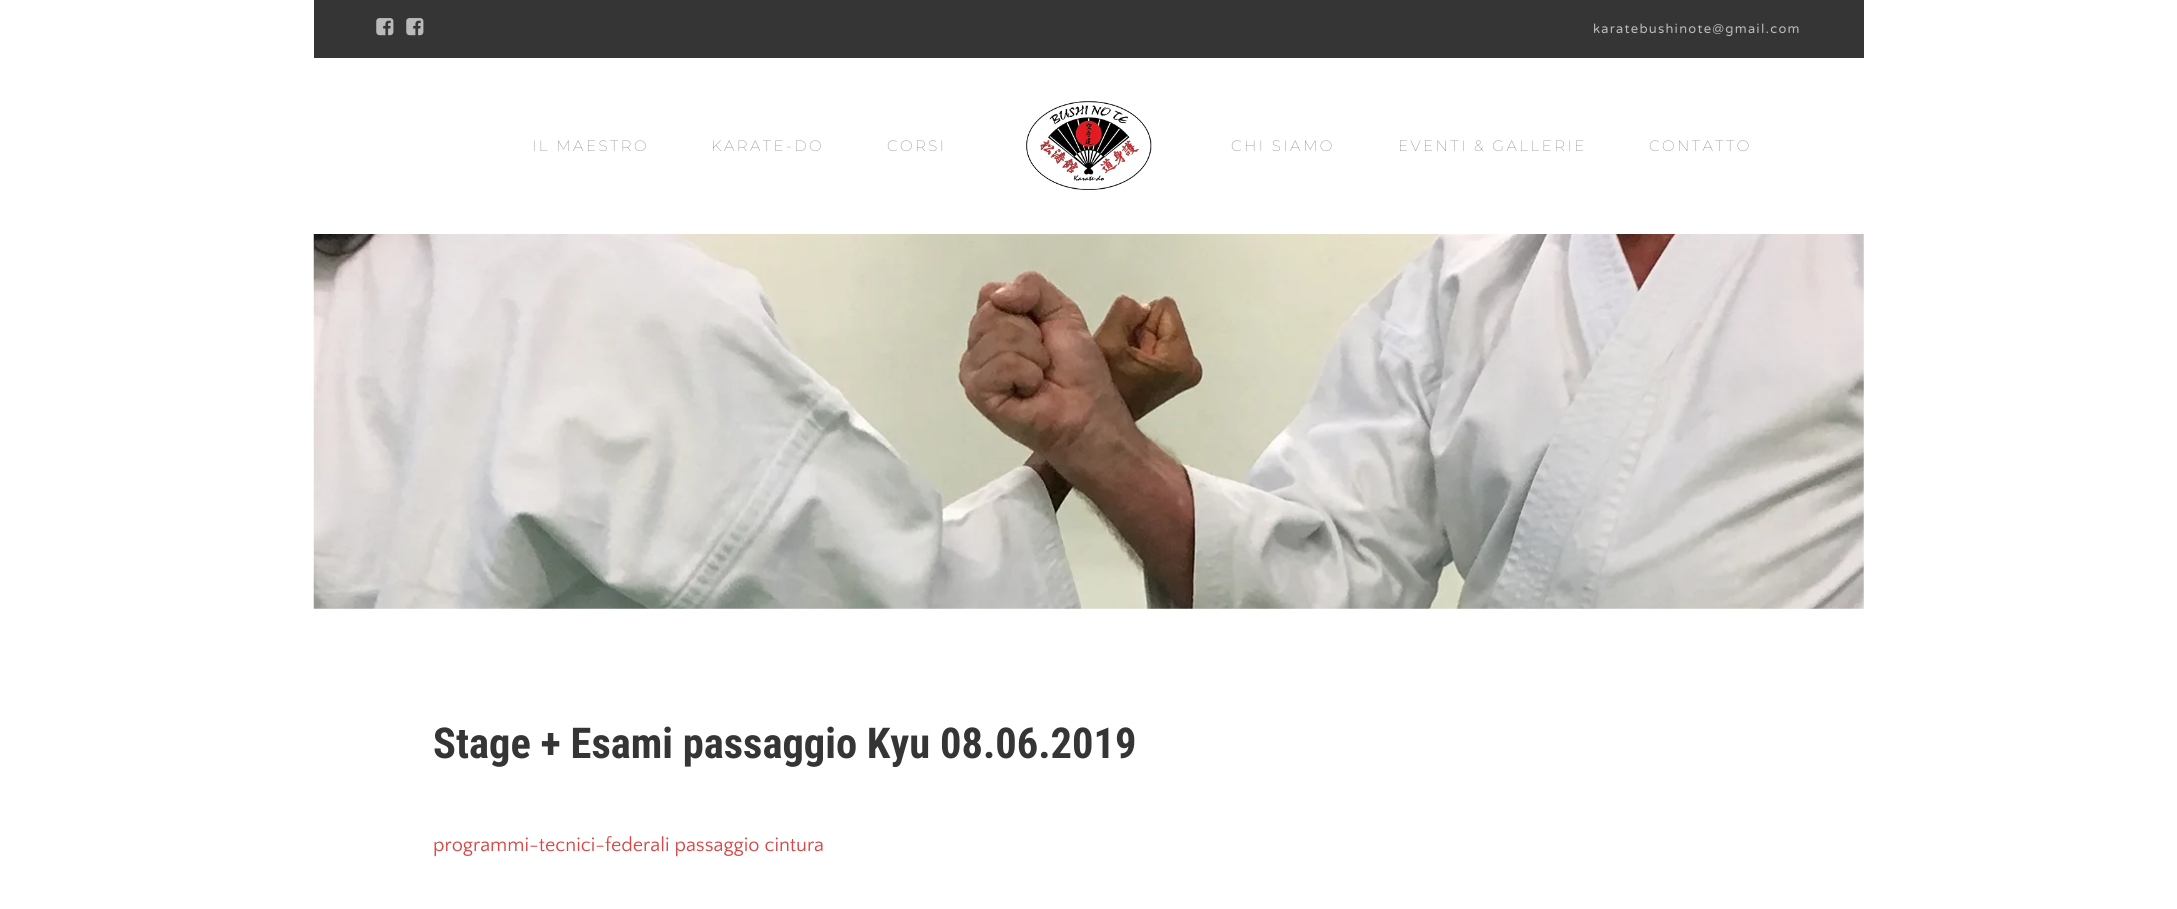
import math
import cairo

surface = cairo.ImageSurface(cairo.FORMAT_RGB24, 2177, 909)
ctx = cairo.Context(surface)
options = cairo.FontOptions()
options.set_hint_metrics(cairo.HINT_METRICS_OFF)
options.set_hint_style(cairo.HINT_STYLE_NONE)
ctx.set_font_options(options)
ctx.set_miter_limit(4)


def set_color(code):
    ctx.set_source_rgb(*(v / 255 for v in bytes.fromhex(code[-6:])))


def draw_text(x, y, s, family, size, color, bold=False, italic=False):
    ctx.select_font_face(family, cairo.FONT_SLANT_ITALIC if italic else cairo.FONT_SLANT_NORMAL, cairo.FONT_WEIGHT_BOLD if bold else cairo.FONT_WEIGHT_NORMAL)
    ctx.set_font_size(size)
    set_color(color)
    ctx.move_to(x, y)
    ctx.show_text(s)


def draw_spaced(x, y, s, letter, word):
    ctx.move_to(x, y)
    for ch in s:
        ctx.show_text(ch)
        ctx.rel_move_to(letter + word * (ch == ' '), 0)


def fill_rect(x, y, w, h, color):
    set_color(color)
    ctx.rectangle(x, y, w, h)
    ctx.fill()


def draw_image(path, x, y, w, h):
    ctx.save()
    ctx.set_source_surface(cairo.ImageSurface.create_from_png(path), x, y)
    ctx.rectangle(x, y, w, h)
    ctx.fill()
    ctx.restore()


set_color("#ffffff")
ctx.paint()
fill_rect(314, 0, 1550, 58, "#353535")
draw_image("assets/img1.png", 376, 18, 18, 18)
draw_image("assets/img1.png", 406, 18, 18, 18)
ctx.select_font_face("NTR")
ctx.set_font_size(16.25)
set_color("#bababa")
draw_spaced(1593, 33, "karatebushinote@gmail.com", 1.25, 0)
draw_image("assets/img3.png", 313, 233, 1551, 376)
fill_rect(314, 233, 1550, 1, "#ffffff")
ctx.select_font_face("Montserrat Thin")
ctx.set_font_size(15)
set_color("#5b5b5b")
draw_spaced(532, 151, "IL MAESTRO", 2.5, 0)
draw_spaced(711, 151, "KARATE-DO", 2.5, 0)
draw_spaced(887, 151, "CORSI", 2.5, 0)
draw_image("assets/img2.png", 1026, 101, 126, 89)
draw_spaced(1231, 151, "CHI SIAMO", 2.5, 0)
draw_spaced(1398, 151, "EVENTI & GALLERIE", 2.5, 0)
draw_spaced(1649, 151, "CONTATTO", 2.5, 0)
draw_text(433, 758, "Stage + Esami passaggio Kyu 08.06.2019", "Roboto Condensed", 42.5, "#353535", bold=True)
draw_text(433, 851, "programmi-tecnici-federali passaggio cintura", "Quattrocento Sans", 20, "#d74545")
surface.write_to_png("output.png")
